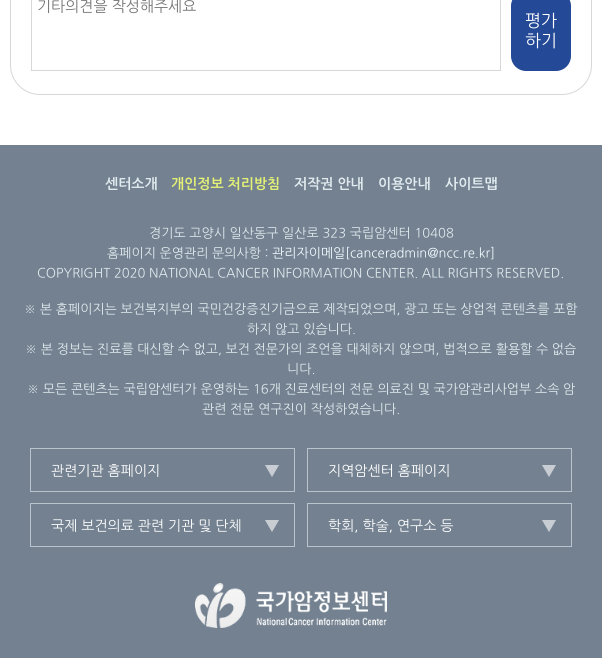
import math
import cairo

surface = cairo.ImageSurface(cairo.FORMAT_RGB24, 602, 658)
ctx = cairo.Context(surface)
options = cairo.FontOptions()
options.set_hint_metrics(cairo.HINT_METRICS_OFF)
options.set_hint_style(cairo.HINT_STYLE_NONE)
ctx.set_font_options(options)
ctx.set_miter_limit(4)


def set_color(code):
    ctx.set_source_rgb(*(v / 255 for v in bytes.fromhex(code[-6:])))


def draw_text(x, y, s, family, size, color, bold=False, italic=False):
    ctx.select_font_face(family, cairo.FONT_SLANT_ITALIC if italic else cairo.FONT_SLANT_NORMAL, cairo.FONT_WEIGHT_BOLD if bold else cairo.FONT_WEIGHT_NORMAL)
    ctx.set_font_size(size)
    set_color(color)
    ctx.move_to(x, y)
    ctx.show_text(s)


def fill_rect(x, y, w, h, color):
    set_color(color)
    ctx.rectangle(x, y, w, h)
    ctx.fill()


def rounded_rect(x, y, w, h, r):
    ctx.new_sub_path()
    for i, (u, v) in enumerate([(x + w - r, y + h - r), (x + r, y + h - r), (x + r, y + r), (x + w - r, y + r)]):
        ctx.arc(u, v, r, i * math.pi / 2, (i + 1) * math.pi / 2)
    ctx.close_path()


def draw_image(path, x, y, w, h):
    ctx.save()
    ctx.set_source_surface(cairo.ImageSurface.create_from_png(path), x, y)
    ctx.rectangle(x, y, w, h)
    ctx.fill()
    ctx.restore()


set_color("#ffffff")
ctx.paint()
rounded_rect(10.5, -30.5, 581, 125, 29.5)
set_color("#d7d7d7")
ctx.set_line_width(1)
ctx.stroke()
ctx.rectangle(31.5, -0.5, 469, 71)
ctx.stroke()
draw_text(37, 11, "기타의견을 작성해주세요", "NanumGothic", 15, "#757575")
set_color("#244997")
rounded_rect(511, -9, 60, 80, 15)
ctx.fill()
draw_text(525, 26, "평가", "NanumGothic", 17, "#ffffff")
draw_text(525, 46, "하기", "NanumGothic", 17, "#ffffff")
fill_rect(0, 145, 602, 513, "#738190")
draw_text(105, 188, "센터소개", "NanumGothic", 14, "#e1ebef", bold=True)
draw_text(171, 188, "개인정보 처리방침", "NanumGothic", 14, "#e4f176", bold=True)
draw_text(294, 188, "저작권 안내", "NanumGothic", 14, "#e1ebef", bold=True)
draw_text(378, 188, "이용안내", "NanumGothic", 14, "#e1ebef", bold=True)
draw_text(445, 188, "사이트맵", "NanumGothic", 14, "#e1ebef", bold=True)
draw_text(149, 237, "경기도 고양시 일산동구 일산로 323 국립암센터 10408", "NanumGothic", 13, "#e1ebef")
draw_text(107, 257, "홈페이지 운영관리 문의사항 :", "NanumGothic", 13, "#e1ebef")
draw_text(272, 257, "관리자이메일[canceradmin@ncc.re.kr]", "NanumGothic", 13, "#f1fbff")
draw_text(37, 277, "COPYRIGHT 2020 NATIONAL CANCER INFORMATION CENTER. ALL RIGHTS RESERVED.", "NanumGothic", 13, "#e1ebef")
draw_text(24, 313, "※ 본 홈페이지는 보건복지부의 국민건강증진기금으로 제작되었으며, 광고 또는 상업적 콘텐츠를 포함", "NanumGothic", 13, "#e1ebef")
draw_text(247, 333, "하지 않고 있습니다.", "NanumGothic", 13, "#e1ebef")
draw_text(25, 353, "※ 본 정보는 진료를 대신할 수 없고, 보건 전문가의 조언을 대체하지 않으며, 법적으로 활용할 수 없습", "NanumGothic", 13, "#e1ebef")
draw_text(287, 373, "니다.", "NanumGothic", 13, "#e1ebef")
draw_text(27, 393, "※ 모든 콘텐츠는 국립암센터가 운영하는 16개 진료센터의 전문 의료진 및 국가암관리사업부 소속 암", "NanumGothic", 13, "#e1ebef")
draw_text(202, 413, "관련 전문 연구진이 작성하였습니다.", "NanumGothic", 13, "#e1ebef")
ctx.rectangle(30.5, 448.5, 264, 43)
set_color("#bac4cf")
ctx.stroke()
draw_text(51, 475, "관련기관 홈페이지", "NanumGothic", 14, "#ffffff")
draw_image("assets/img1.png", 265, 465, 14, 12)
ctx.rectangle(307.5, 448.5, 264, 43)
set_color("#bac4cf")
ctx.stroke()
draw_text(328, 475, "지역암센터 홈페이지", "NanumGothic", 14, "#ffffff")
draw_image("assets/img1.png", 542, 465, 14, 12)
ctx.rectangle(30.5, 503.5, 264, 43)
set_color("#bac4cf")
ctx.stroke()
draw_text(51, 530, "국제 보건의료 관련 기관 및 단체", "NanumGothic", 14, "#ffffff")
draw_image("assets/img1.png", 265, 520, 14, 12)
ctx.rectangle(307.5, 503.5, 264, 43)
set_color("#bac4cf")
ctx.stroke()
draw_text(328, 530, "학회, 학술, 연구소 등", "NanumGothic", 14, "#ffffff")
draw_image("assets/img1.png", 542, 520, 14, 12)
draw_image("assets/img2.png", 195, 583, 192, 45)
surface.write_to_png("output.png")
